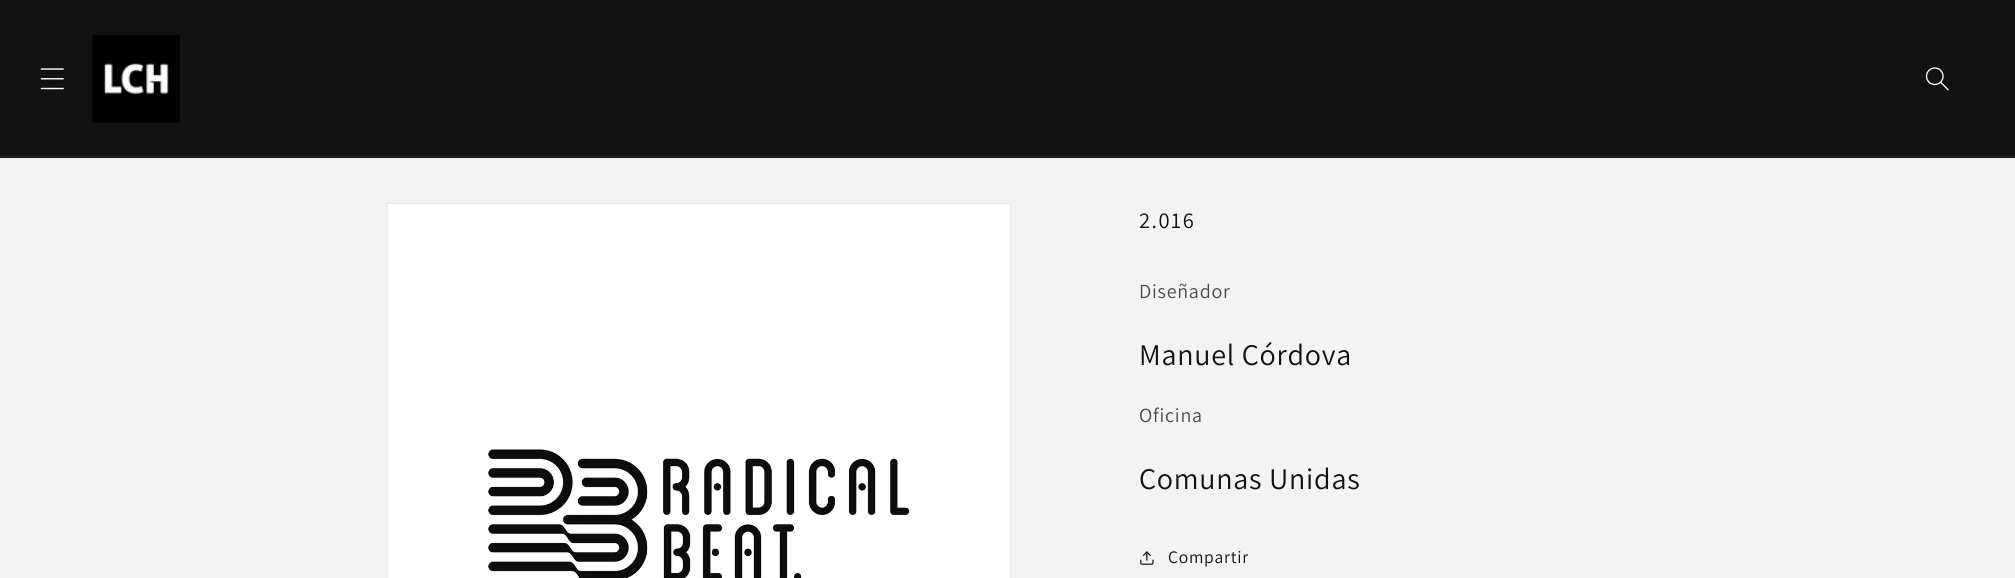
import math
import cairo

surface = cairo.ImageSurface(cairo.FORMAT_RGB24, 2015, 578)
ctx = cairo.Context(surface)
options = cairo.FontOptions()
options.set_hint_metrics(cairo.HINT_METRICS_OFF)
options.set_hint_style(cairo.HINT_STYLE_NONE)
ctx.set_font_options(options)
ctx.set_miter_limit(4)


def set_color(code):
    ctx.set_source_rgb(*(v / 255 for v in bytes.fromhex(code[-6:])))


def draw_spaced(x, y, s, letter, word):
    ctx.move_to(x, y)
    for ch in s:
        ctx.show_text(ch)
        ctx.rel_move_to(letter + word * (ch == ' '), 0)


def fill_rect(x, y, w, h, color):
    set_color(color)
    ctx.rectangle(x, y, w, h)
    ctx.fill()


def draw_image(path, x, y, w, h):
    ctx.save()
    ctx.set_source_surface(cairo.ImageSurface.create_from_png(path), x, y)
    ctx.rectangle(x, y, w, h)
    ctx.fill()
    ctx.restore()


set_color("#f3f3f3")
ctx.paint()
fill_rect(0, 0, 2015, 158, "#121212")
fill_rect(0, 156, 2015, 1, "#252525")
draw_image("assets/img1.png", 40, 68, 24, 22)
draw_image("assets/img2.png", 92, 35, 88, 88)
draw_image("assets/img3.png", 1925, 67, 24, 24)
ctx.rectangle(386.5, 203.5, 624, 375)
set_color("#e8e8e8")
ctx.set_line_width(1)
ctx.stroke()
draw_image("assets/img4.png", 388, 204, 622, 374)
ctx.select_font_face("Assistant")
ctx.set_font_size(22.5)
set_color("#121212")
draw_spaced(1139, 228, "2.016", 1.5, 0)
ctx.set_font_size(20)
set_color("#4a4a4a")
draw_spaced(1139, 298, "Diseñador", 0.75, 0)
ctx.set_font_size(30)
set_color("#121212")
draw_spaced(1139, 365, "Manuel Córdova", 0.75, 0)
ctx.set_font_size(20)
set_color("#4a4a4a")
draw_spaced(1139, 422, "Oficina", 0.75, 0)
ctx.set_font_size(30)
set_color("#121212")
draw_spaced(1139, 489, "Comunas Unidas", 0.75, 0)
draw_image("assets/img5.png", 1140, 551, 14, 14)
ctx.set_font_size(17.5)
draw_spaced(1168, 563, "Compartir", 0.75, 0)
surface.write_to_png("output.png")
